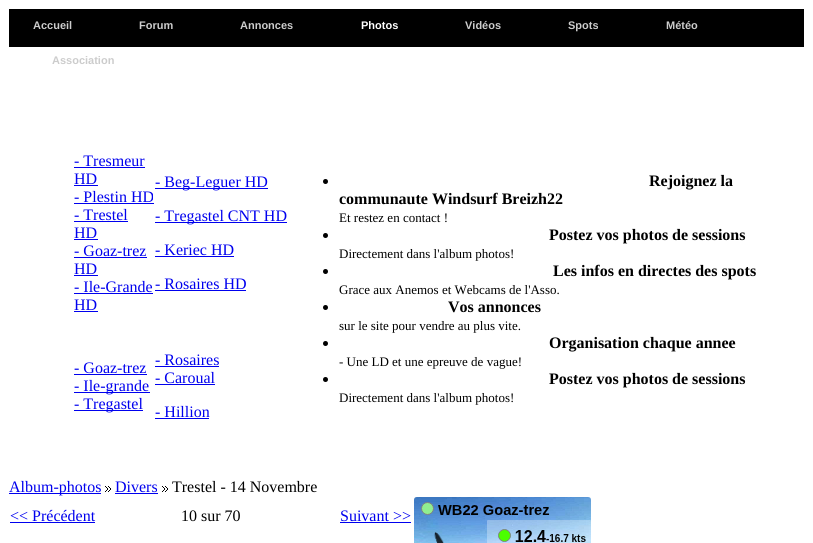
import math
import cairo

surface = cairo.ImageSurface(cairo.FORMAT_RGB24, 813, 543)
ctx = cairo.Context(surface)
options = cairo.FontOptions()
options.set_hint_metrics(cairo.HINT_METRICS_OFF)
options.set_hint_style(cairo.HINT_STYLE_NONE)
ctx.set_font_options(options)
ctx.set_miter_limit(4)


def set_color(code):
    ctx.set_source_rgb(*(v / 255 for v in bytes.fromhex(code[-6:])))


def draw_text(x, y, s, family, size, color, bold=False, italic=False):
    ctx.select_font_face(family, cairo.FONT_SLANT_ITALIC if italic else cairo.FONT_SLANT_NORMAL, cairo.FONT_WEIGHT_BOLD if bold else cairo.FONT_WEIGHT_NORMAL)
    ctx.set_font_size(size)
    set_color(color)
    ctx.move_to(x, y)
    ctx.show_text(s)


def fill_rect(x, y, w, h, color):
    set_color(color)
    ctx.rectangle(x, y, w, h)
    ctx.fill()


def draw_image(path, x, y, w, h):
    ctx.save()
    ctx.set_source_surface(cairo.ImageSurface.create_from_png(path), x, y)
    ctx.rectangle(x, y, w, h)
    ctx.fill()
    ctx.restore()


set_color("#ffffff")
ctx.paint()
fill_rect(9, 9, 795, 38, "#000000")
draw_text(33, 29, "Accueil", "Liberation Sans", 11, "#cccccc", bold=True)
draw_text(139, 29, "Forum", "Liberation Sans", 11, "#cccccc", bold=True)
draw_text(240, 29, "Annonces", "Liberation Sans", 11, "#cccccc", bold=True)
draw_text(361, 29, "Photos", "Liberation Sans", 11, "#ffffff", bold=True)
draw_text(465, 29, "Vidéos", "Liberation Sans", 11, "#cccccc", bold=True)
draw_text(568, 29, "Spots", "Liberation Sans", 11, "#cccccc", bold=True)
draw_text(666, 29, "Météo", "Liberation Sans", 11, "#cccccc", bold=True)
draw_text(52, 64, "Association", "Liberation Sans", 11, "#cccccc", bold=True)
draw_text(74, 166, "- Tresmeur", "Liberation Serif", 16, "#0000ee")
fill_rect(74, 167, 71, 1, "#0000ee")
draw_text(74, 184, "HD", "Liberation Serif", 16, "#0000ee")
fill_rect(74, 185, 24, 1, "#0000ee")
draw_text(74, 202, "- Plestin HD", "Liberation Serif", 16, "#0000ee")
fill_rect(74, 203, 80, 1, "#0000ee")
draw_text(74, 220, "- Trestel", "Liberation Serif", 16, "#0000ee")
fill_rect(74, 221, 54, 1, "#0000ee")
draw_text(74, 238, "HD", "Liberation Serif", 16, "#0000ee")
fill_rect(74, 239, 24, 1, "#0000ee")
draw_text(74, 256, "- Goaz-trez", "Liberation Serif", 16, "#0000ee")
fill_rect(74, 257, 73, 1, "#0000ee")
draw_text(74, 274, "HD", "Liberation Serif", 16, "#0000ee")
fill_rect(74, 275, 24, 1, "#0000ee")
draw_text(74, 292, "- Ile-Grande", "Liberation Serif", 16, "#0000ee")
fill_rect(74, 293, 79, 1, "#0000ee")
draw_text(74, 310, "HD", "Liberation Serif", 16, "#0000ee")
fill_rect(74, 311, 24, 1, "#0000ee")
fill_rect(155, 188, 113, 1, "#0000ee")
draw_text(155, 187, "- Beg-Leguer HD", "Liberation Serif", 16, "#0000ee")
fill_rect(155, 222, 132, 1, "#0000ee")
draw_text(155, 221, "- Tregastel CNT HD", "Liberation Serif", 16, "#0000ee")
draw_text(155, 255, "- Keriec HD", "Liberation Serif", 16, "#0000ee")
fill_rect(155, 256, 79, 1, "#0000ee")
draw_text(155, 289, "- Rosaires HD", "Liberation Serif", 16, "#0000ee")
fill_rect(155, 290, 91, 1, "#0000ee")
draw_text(74, 373, "- Goaz-trez", "Liberation Serif", 16, "#0000ee")
fill_rect(74, 374, 73, 1, "#0000ee")
fill_rect(74, 392, 76, 1, "#0000ee")
draw_text(74, 391, "- Ile-grande", "Liberation Serif", 16, "#0000ee")
fill_rect(74, 410, 69, 1, "#0000ee")
draw_text(74, 409, "- Tregastel", "Liberation Serif", 16, "#0000ee")
draw_text(155, 365, "- Rosaires", "Liberation Serif", 16, "#0000ee")
fill_rect(155, 366, 64, 1, "#0000ee")
draw_text(155, 383, "- Caroual", "Liberation Serif", 16, "#0000ee")
fill_rect(155, 384, 60, 1, "#0000ee")
draw_text(155, 417, "- Hillion", "Liberation Serif", 16, "#0000ee")
fill_rect(155, 418, 54, 1, "#0000ee")
set_color("#000000")
ctx.new_path()
ctx.arc(325.5, 181.5, 2.5, 0, 2 * math.pi)
ctx.fill()
draw_text(649, 186, "Rejoignez la", "Liberation Serif", 16, "#000000", bold=True)
draw_text(339, 204, "communaute Windsurf Breizh22", "Liberation Serif", 16, "#000000", bold=True)
draw_text(339, 222, "Et restez en contact !", "Liberation Serif", 13, "#000000")
ctx.new_path()
ctx.arc(325.5, 235.5, 2.5, 0, 2 * math.pi)
ctx.fill()
draw_text(549, 240, "Postez vos photos de sessions", "Liberation Serif", 16, "#000000", bold=True)
draw_text(339, 258, "Directement dans l'album photos!", "Liberation Serif", 13, "#000000")
ctx.new_path()
ctx.arc(325.5, 271.5, 2.5, 0, 2 * math.pi)
ctx.fill()
draw_text(553, 276, "Les infos en directes des spots", "Liberation Serif", 16, "#000000", bold=True)
draw_text(339, 294, "Grace aux Anemos et Webcams de l'Asso.", "Liberation Serif", 13, "#000000")
ctx.new_path()
ctx.arc(325.5, 307.5, 2.5, 0, 2 * math.pi)
ctx.fill()
draw_text(448, 312, "Vos annonces", "Liberation Serif", 16, "#000000", bold=True)
draw_text(339, 330, "sur le site pour vendre au plus vite.", "Liberation Serif", 13, "#000000")
ctx.new_path()
ctx.arc(325.5, 343.5, 2.5, 0, 2 * math.pi)
ctx.fill()
draw_text(549, 348, "Organisation chaque annee", "Liberation Serif", 16, "#000000", bold=True)
draw_text(339, 366, "- Une LD et une epreuve de vague!", "Liberation Serif", 13, "#000000")
ctx.new_path()
ctx.arc(325.5, 379.5, 2.5, 0, 2 * math.pi)
ctx.fill()
draw_text(549, 384, "Postez vos photos de sessions", "Liberation Serif", 16, "#000000", bold=True)
draw_text(339, 402, "Directement dans l'album photos!", "Liberation Serif", 13, "#000000")
fill_rect(9, 493, 92, 1, "#0000ee")
draw_text(9, 492, "Album-photos", "Liberation Serif", 16, "#0000ee")
draw_image("assets/img1.png", 105, 486, 6, 6)
draw_text(115, 492, "Divers", "Liberation Serif", 16, "#0000ee")
fill_rect(115, 493, 43, 1, "#0000ee")
draw_image("assets/img1.png", 162, 486, 6, 6)
draw_text(172, 492, "Trestel - 14 Novembre", "Liberation Serif", 16, "#000000")
draw_text(10, 521, "<< Précédent", "Liberation Serif", 16, "#0000ee")
fill_rect(10, 522, 85, 1, "#0000ee")
draw_text(181, 521, "10 sur 70", "Liberation Serif", 16, "#000000")
draw_text(340, 521, "Suivant >>", "Liberation Serif", 16, "#0000ee")
fill_rect(340, 522, 71, 1, "#0000ee")
draw_image("assets/img2.png", 414, 497, 177, 46)
surface.write_to_png("output.png")
